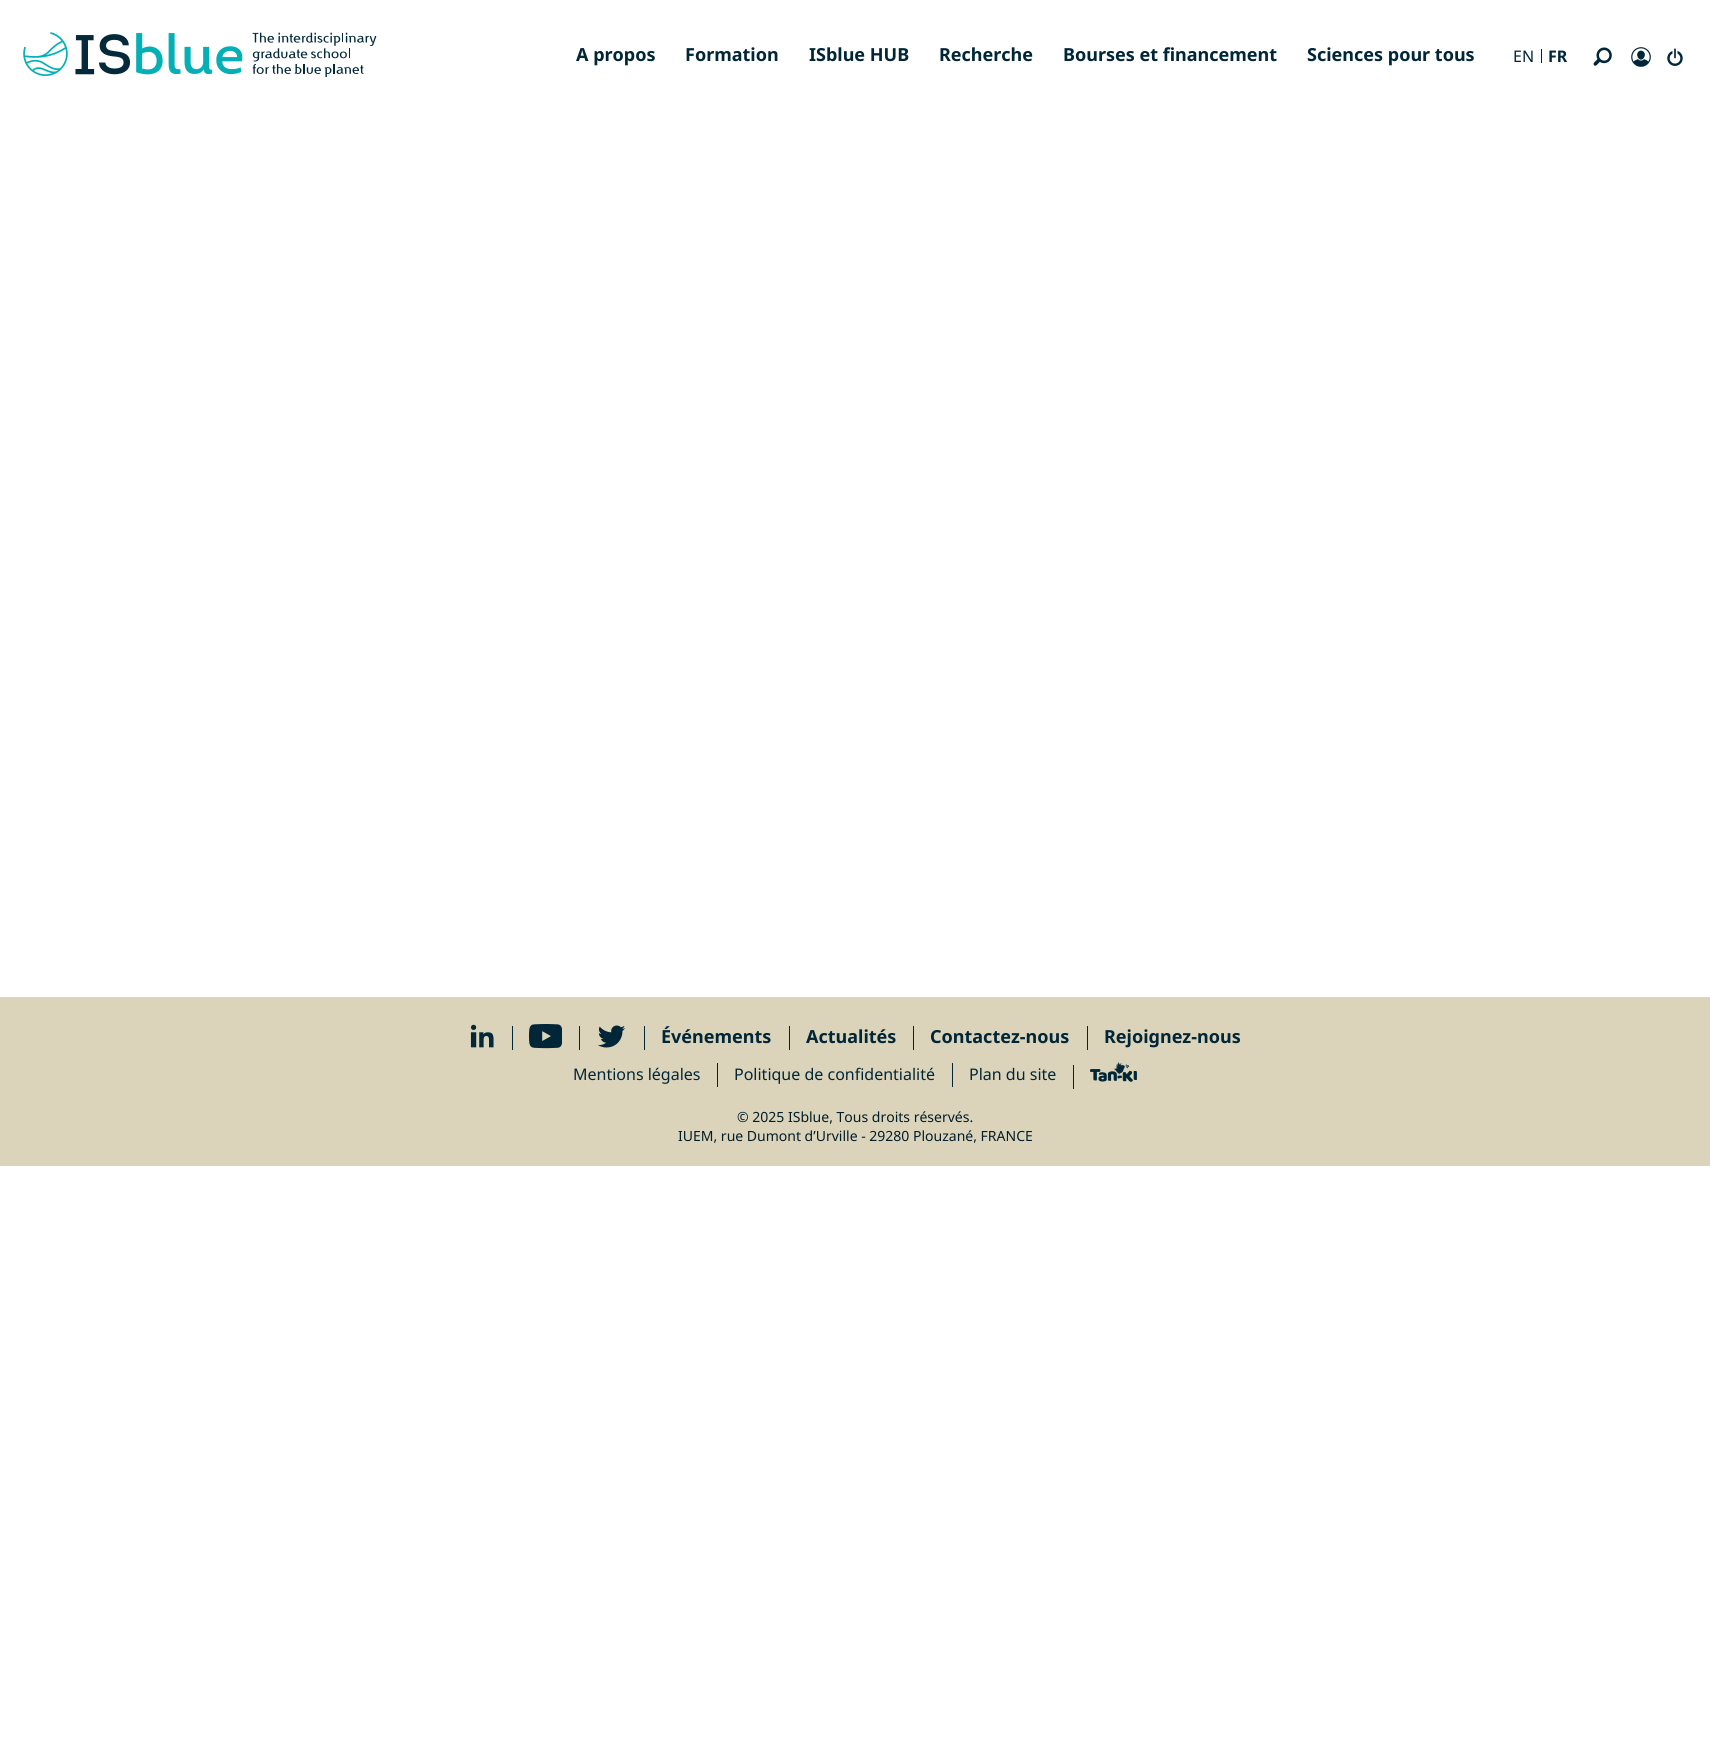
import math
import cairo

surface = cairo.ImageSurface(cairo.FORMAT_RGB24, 1710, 1749)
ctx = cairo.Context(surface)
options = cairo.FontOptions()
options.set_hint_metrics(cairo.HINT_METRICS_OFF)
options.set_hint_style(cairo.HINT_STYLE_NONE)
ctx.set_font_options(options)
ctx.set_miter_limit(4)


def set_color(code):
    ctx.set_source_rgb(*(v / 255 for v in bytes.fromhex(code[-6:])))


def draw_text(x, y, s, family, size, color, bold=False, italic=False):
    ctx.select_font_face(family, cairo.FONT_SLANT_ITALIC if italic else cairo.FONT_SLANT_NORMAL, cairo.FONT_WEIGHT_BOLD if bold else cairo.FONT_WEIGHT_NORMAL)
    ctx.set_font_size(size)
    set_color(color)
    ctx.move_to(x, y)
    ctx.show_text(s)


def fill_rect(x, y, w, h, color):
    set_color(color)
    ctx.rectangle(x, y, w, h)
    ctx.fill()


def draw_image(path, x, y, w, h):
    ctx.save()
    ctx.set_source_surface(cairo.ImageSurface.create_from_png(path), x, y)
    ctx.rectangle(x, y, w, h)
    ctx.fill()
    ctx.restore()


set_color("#ffffff")
ctx.paint()
draw_image("assets/img1.png", 23, 32, 354, 46)
draw_text(576, 61, "A propos", "Noto Sans", 18, "#002638", bold=True)
draw_text(685, 61, "Formation", "Noto Sans", 18, "#002638", bold=True)
draw_text(809, 61, "ISblue HUB", "Noto Sans", 18, "#002638", bold=True)
draw_text(939, 61, "Recherche", "Noto Sans", 18, "#002638", bold=True)
draw_text(1063, 61, "Bourses et financement", "Noto Sans", 18, "#002638", bold=True)
draw_text(1307, 61, "Sciences pour tous", "Noto Sans", 18, "#002638", bold=True)
draw_text(1513, 62, "EN", "Noto Sans", 16, "#002638")
fill_rect(1541, 49, 1, 14, "#002638")
draw_text(1548, 62, "FR", "Noto Sans", 16, "#002638", bold=True)
draw_image("assets/img2.png", 1593, 47, 19, 19)
draw_image("assets/img3.png", 1631, 47, 20, 20)
draw_image("assets/img4.png", 1667, 48, 16, 18)
fill_rect(0, 997, 1710, 169, "#dcd4ba")
draw_image("assets/img5.png", 470, 1024, 24, 24)
fill_rect(512, 1026, 1, 24, "#002638")
draw_image("assets/img6.png", 529, 1024, 33, 25)
fill_rect(579, 1026, 1, 24, "#002638")
draw_image("assets/img7.png", 598, 1025, 27, 23)
fill_rect(644, 1026, 1, 24, "#002638")
draw_text(661, 1043, "Événements", "Noto Sans", 18, "#002638", bold=True)
fill_rect(789, 1026, 1, 24, "#002638")
draw_text(806, 1043, "Actualités", "Noto Sans", 18, "#002638", bold=True)
fill_rect(913, 1026, 1, 24, "#002638")
draw_text(930, 1043, "Contactez-nous", "Noto Sans", 18, "#002638", bold=True)
fill_rect(1087, 1026, 1, 24, "#002638")
draw_text(1104, 1043, "Rejoignez-nous", "Noto Sans", 18, "#002638", bold=True)
draw_text(573, 1080, "Mentions légales", "Noto Sans", 16, "#002638")
fill_rect(717, 1063, 1, 24, "#002638")
draw_text(734, 1080, "Politique de confidentialité", "Noto Sans", 16, "#002638")
fill_rect(952, 1063, 1, 24, "#002638")
draw_text(969, 1080, "Plan du site", "Noto Sans", 16, "#002638")
fill_rect(1073, 1065, 1, 24, "#002638")
draw_image("assets/img8.png", 1090, 1062, 47, 20)
draw_text(737, 1122, "© 2025 ISblue, Tous droits réservés.", "Noto Sans", 14, "#011d2a")
draw_text(678, 1141, "IUEM, rue Dumont d’Urville - 29280 Plouzané, FRANCE", "Noto Sans", 14, "#011d2a")
surface.write_to_png("output.png")
